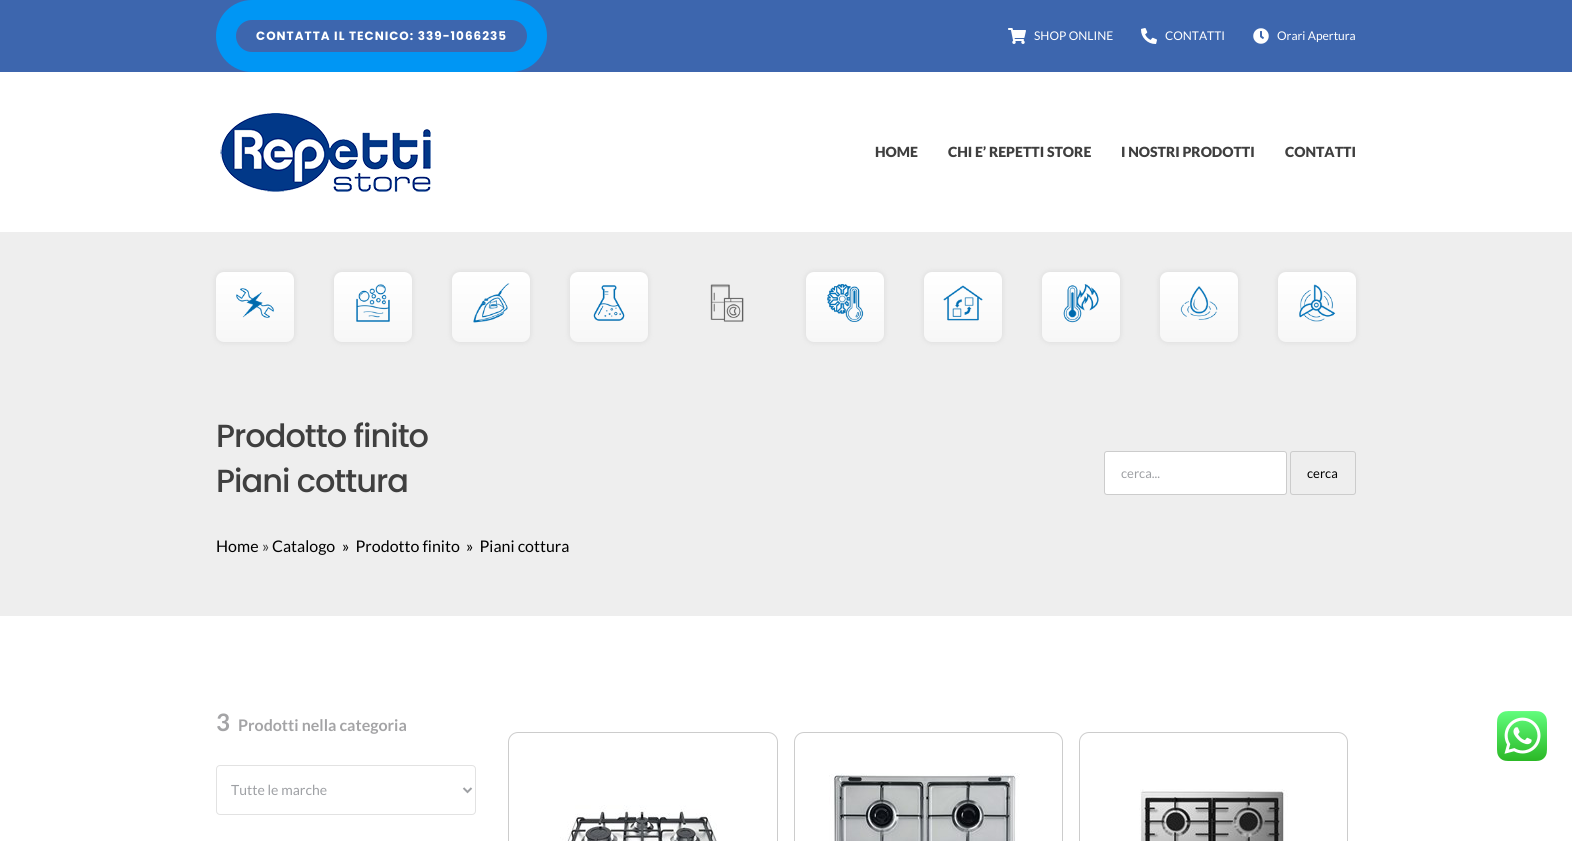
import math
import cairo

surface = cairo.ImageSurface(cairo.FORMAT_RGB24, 1572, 841)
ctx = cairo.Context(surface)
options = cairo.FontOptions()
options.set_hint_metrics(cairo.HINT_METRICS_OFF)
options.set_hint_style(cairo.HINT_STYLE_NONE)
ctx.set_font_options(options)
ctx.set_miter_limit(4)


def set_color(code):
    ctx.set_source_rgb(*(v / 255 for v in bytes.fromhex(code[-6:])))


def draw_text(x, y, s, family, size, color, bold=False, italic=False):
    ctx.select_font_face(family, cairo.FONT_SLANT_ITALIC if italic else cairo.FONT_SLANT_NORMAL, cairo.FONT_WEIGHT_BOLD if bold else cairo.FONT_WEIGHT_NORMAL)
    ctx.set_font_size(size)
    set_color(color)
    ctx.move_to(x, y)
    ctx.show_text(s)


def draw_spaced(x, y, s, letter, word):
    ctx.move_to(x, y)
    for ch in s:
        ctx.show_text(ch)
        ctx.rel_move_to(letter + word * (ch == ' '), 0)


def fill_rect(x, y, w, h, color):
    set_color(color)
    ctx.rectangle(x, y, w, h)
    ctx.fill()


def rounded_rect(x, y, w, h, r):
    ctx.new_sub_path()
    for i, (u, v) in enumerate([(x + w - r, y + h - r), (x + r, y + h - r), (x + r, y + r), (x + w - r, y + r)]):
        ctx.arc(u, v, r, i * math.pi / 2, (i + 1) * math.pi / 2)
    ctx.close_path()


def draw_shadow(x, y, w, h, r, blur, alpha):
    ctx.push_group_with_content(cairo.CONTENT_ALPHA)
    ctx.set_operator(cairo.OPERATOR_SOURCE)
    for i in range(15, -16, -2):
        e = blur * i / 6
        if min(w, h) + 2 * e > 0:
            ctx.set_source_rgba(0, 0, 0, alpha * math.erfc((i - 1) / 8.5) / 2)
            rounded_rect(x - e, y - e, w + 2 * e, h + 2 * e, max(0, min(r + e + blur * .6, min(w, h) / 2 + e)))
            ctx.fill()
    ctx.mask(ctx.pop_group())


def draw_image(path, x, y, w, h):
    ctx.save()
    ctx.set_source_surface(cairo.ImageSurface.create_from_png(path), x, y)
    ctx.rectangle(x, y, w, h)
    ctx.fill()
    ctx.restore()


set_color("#ffffff")
ctx.paint()
fill_rect(0, 0, 1572, 72, "#3d66ae")
rounded_rect(226, 10, 311, 52, 26)
set_color("#0096f4")
ctx.set_line_width(20)
ctx.stroke()
ctx.select_font_face("Poppins", cairo.FONT_SLANT_NORMAL, cairo.FONT_WEIGHT_BOLD)
ctx.set_font_size(12)
set_color("#ffffff")
draw_spaced(256, 40, "CONTATTA IL TECNICO: 339-1066235", 1, 0)
draw_image("assets/img1.png", 1008, 28, 18, 16)
draw_text(1034, 40, "SHOP ONLINE", "Lato", 12, "#ffffff")
draw_image("assets/img2.png", 1141, 28, 16, 16)
draw_text(1165, 40, "CONTATTI", "Lato", 12, "#ffffff")
draw_image("assets/img3.png", 1253, 28, 16, 16)
draw_text(1277, 40, "Orari Apertura", "Lato", 12, "#ffffff")
draw_image("assets/img4.png", 220, 113, 211, 79)
draw_text(875, 157, "HOME", "Lato Black", 14, "#3f3f3f")
draw_text(948, 157, "CHI E’ REPETTI STORE", "Lato Black", 14, "#3f3f3f")
draw_text(1121, 157, "I NOSTRI PRODOTTI", "Lato Black", 14, "#3f3f3f")
draw_text(1285, 157, "CONTATTI", "Lato Black", 14, "#3f3f3f")
fill_rect(0, 232, 1572, 384, "#eeeeee")
set_color("#e3e3e3")
draw_shadow(214, 270, 82, 74, 10, 2, 1)
gradient = cairo.LinearGradient(255, 272, 255, 342)
gradient.add_color_stop_rgba(0, 1, 1, 1, 1)
gradient.add_color_stop_rgba(1, 0.969, 0.969, 0.969, 1)
ctx.set_source(gradient)
rounded_rect(216, 272, 78, 70, 8)
ctx.fill()
draw_image("assets/img5.png", 236, 288, 38, 30)
set_color("#e3e3e3")
draw_shadow(332, 270, 82, 74, 10, 2, 1)
gradient = cairo.LinearGradient(373, 272, 373, 342)
gradient.add_color_stop_rgba(0, 1, 1, 1, 1)
gradient.add_color_stop_rgba(1, 0.969, 0.969, 0.969, 1)
ctx.set_source(gradient)
rounded_rect(334, 272, 78, 70, 8)
ctx.fill()
draw_image("assets/img6.png", 356, 284, 34, 38)
set_color("#e3e3e3")
draw_shadow(450, 270, 82, 74, 10, 2, 1)
gradient = cairo.LinearGradient(491, 272, 491, 342)
gradient.add_color_stop_rgba(0, 1, 1, 1, 1)
gradient.add_color_stop_rgba(1, 0.969, 0.969, 0.969, 1)
ctx.set_source(gradient)
rounded_rect(452, 272, 78, 70, 8)
ctx.fill()
draw_image("assets/img7.png", 473, 283, 37, 40)
set_color("#e3e3e3")
draw_shadow(568, 270, 82, 74, 10, 2, 1)
gradient = cairo.LinearGradient(609, 272, 609, 342)
gradient.add_color_stop_rgba(0, 1, 1, 1, 1)
gradient.add_color_stop_rgba(1, 0.969, 0.969, 0.969, 1)
ctx.set_source(gradient)
rounded_rect(570, 272, 78, 70, 8)
ctx.fill()
draw_image("assets/img8.png", 593, 285, 32, 36)
draw_image("assets/img9.png", 710, 284, 34, 38)
set_color("#e3e3e3")
draw_shadow(804, 270, 82, 74, 10, 2, 1)
gradient = cairo.LinearGradient(845, 272, 845, 342)
gradient.add_color_stop_rgba(0, 1, 1, 1, 1)
gradient.add_color_stop_rgba(1, 0.969, 0.969, 0.969, 1)
ctx.set_source(gradient)
rounded_rect(806, 272, 78, 70, 8)
ctx.fill()
draw_image("assets/img10.png", 827, 284, 37, 38)
set_color("#e3e3e3")
draw_shadow(922, 270, 82, 74, 10, 2, 1)
gradient = cairo.LinearGradient(963, 272, 963, 342)
gradient.add_color_stop_rgba(0, 1, 1, 1, 1)
gradient.add_color_stop_rgba(1, 0.969, 0.969, 0.969, 1)
ctx.set_source(gradient)
rounded_rect(924, 272, 78, 70, 8)
ctx.fill()
draw_image("assets/img11.png", 943, 285, 40, 36)
set_color("#e3e3e3")
draw_shadow(1040, 270, 82, 74, 10, 2, 1)
gradient = cairo.LinearGradient(1081, 272, 1081, 342)
gradient.add_color_stop_rgba(0, 1, 1, 1, 1)
gradient.add_color_stop_rgba(1, 0.969, 0.969, 0.969, 1)
ctx.set_source(gradient)
rounded_rect(1042, 272, 78, 70, 8)
ctx.fill()
draw_image("assets/img12.png", 1063, 284, 36, 39)
set_color("#e3e3e3")
draw_shadow(1158, 270, 82, 74, 10, 2, 1)
gradient = cairo.LinearGradient(1199, 272, 1199, 342)
gradient.add_color_stop_rgba(0, 1, 1, 1, 1)
gradient.add_color_stop_rgba(1, 0.969, 0.969, 0.969, 1)
ctx.set_source(gradient)
rounded_rect(1160, 272, 78, 70, 8)
ctx.fill()
draw_image("assets/img13.png", 1180, 286, 38, 34)
set_color("#e3e3e3")
draw_shadow(1276, 270, 82, 74, 10, 2, 1)
gradient = cairo.LinearGradient(1317, 272, 1317, 342)
gradient.add_color_stop_rgba(0, 1, 1, 1, 1)
gradient.add_color_stop_rgba(1, 0.969, 0.969, 0.969, 1)
ctx.set_source(gradient)
rounded_rect(1278, 272, 78, 70, 8)
ctx.fill()
draw_image("assets/img14.png", 1299, 284, 37, 38)
ctx.select_font_face("Poppins Medium")
ctx.set_font_size(32)
set_color("#3f3f3f")
draw_spaced(216, 447, "Prodotto finito", -1, 0)
draw_spaced(216, 492, "Piani cottura", -1, 0)
set_color("#ffffff")
rounded_rect(1104.5, 451.5, 182, 43, 2.5)
ctx.fill_preserve()
set_color("#cccccc")
ctx.set_line_width(1)
ctx.stroke()
draw_text(1121, 478, "cerca...", "Lato", 13, "#9ea0a4")
rounded_rect(1290.5, 451.5, 65, 43, 2.5)
set_color("#cccccc")
ctx.stroke()
draw_text(1307, 478, "cerca", "Lato", 13, "#000000")
draw_text(216, 552, "Home", "Lato", 16, "#000000")
draw_text(262, 552, "»", "Lato", 16, "#3f3f3f")
draw_text(272, 552, "Catalogo", "Lato", 16, "#000000")
draw_text(342, 552, "»  Prodotto finito", "Lato", 16, "#000000")
draw_text(466, 552, "»  Piani cottura", "Lato", 16, "#000000")
draw_text(216, 731, "3", "Lato", 24, "#a4a4a6", bold=True)
draw_text(238, 731, "Prodotti nella categoria", "Lato", 16, "#a4a4a6", bold=True)
rounded_rect(216.5, 765.5, 259, 49, 3.5)
set_color("#e2e2e2")
ctx.stroke()
ctx.new_path()
ctx.move_to(463.5, 788)
ctx.line_to(467.5, 792)
ctx.line_to(471.5, 788)
set_color("#9ea0a4")
ctx.set_line_width(2)
ctx.stroke()
draw_text(231, 795, "Tutte le marche", "Lato", 14, "#9ea0a4")
rounded_rect(508.5, 732.5, 269, 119, 9.5)
set_color("#cccccc")
ctx.set_line_width(1)
ctx.stroke()
draw_image("assets/img15.png", 560, 805, 157, 36)
rounded_rect(794.5, 732.5, 268, 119, 9.5)
ctx.stroke()
draw_image("assets/img16.png", 829, 773, 191, 68)
rounded_rect(1079.5, 732.5, 268, 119, 9.5)
ctx.stroke()
draw_image("assets/img17.png", 1139, 789, 149, 52)
draw_image("assets/img18.png", 1497, 711, 50, 50)
surface.write_to_png("output.png")
